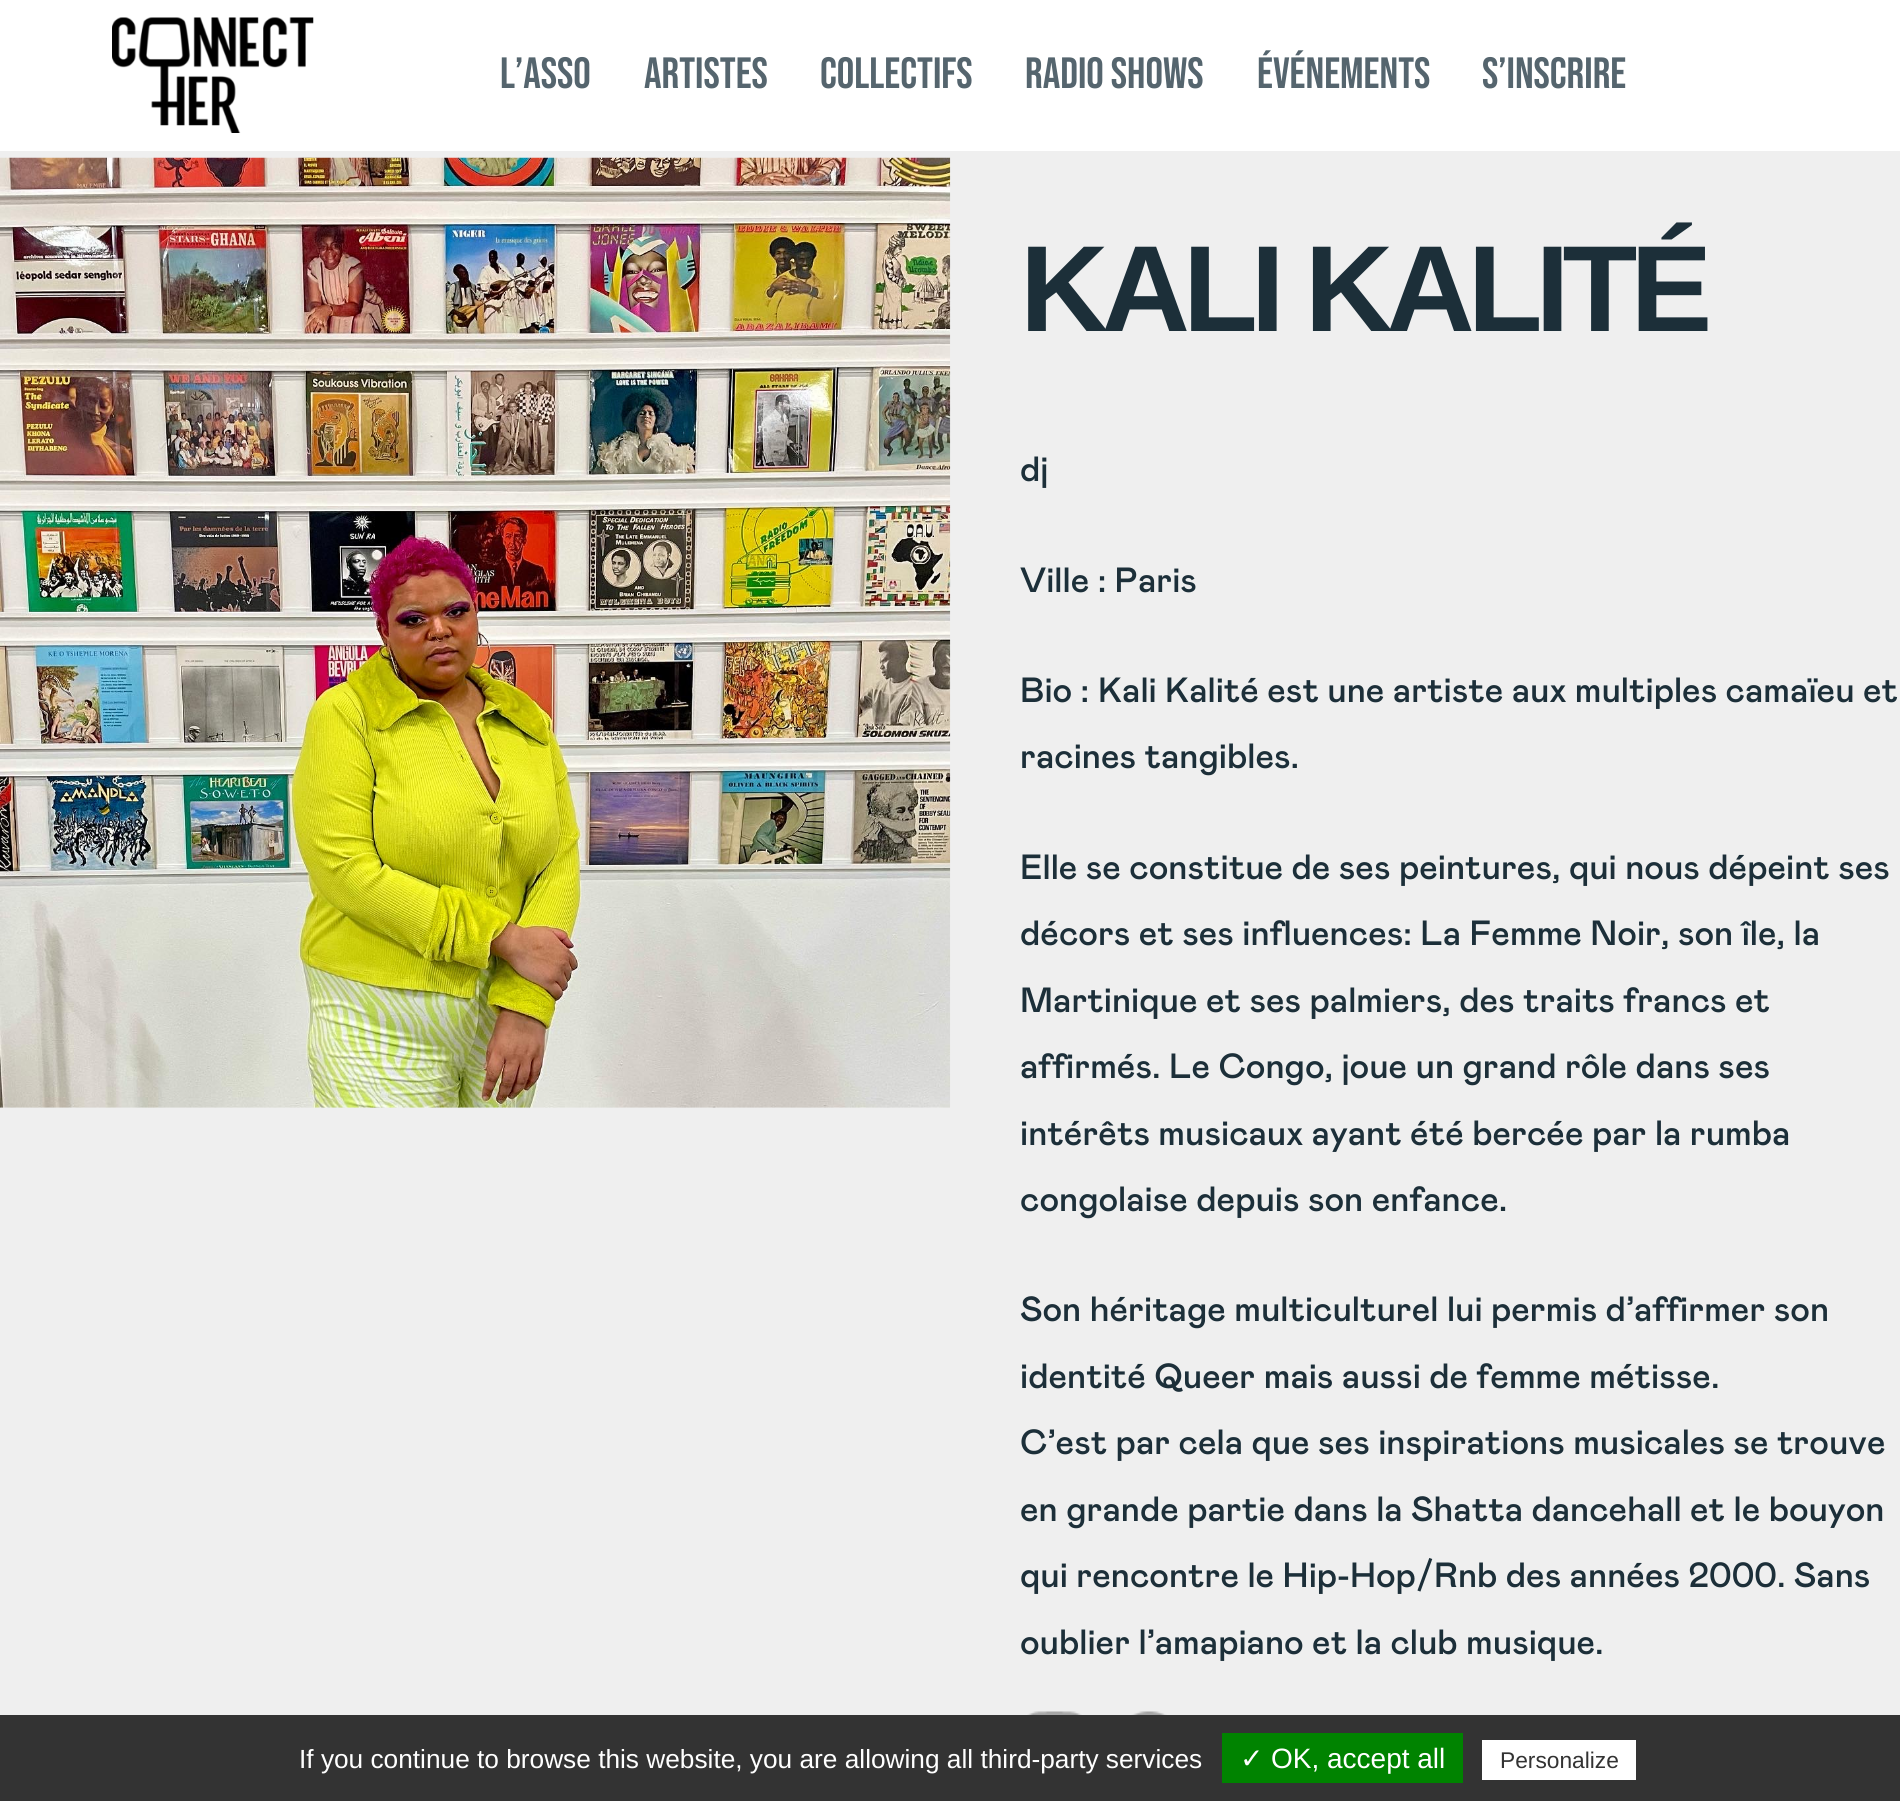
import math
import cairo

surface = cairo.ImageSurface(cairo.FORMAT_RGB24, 1900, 1801)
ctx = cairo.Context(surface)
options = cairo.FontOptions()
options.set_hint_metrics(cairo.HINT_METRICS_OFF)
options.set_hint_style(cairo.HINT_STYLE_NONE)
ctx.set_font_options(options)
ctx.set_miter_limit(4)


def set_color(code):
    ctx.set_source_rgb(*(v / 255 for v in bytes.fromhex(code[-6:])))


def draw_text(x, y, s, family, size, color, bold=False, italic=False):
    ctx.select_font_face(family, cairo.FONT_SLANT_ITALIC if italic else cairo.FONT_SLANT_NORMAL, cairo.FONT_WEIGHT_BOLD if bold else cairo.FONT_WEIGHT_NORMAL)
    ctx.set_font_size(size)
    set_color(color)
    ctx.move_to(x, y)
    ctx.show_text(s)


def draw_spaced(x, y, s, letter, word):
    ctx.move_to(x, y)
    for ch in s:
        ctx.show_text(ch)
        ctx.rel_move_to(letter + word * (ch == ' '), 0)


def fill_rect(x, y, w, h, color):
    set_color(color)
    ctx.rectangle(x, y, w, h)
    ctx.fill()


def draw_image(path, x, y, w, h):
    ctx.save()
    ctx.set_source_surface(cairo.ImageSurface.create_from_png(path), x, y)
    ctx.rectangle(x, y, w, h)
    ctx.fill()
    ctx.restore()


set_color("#efefef")
ctx.paint()
fill_rect(0, 0, 1900, 151, "#ffffff")
draw_image("assets/img1.png", 112, 17, 202, 116)
draw_text(500, 88, "L’ASSO", "Bebas Neue", 43.75, "#55656e")
draw_text(644, 88, "Artistes", "Bebas Neue", 43.75, "#55656e")
draw_text(820, 88, "Collectifs", "Bebas Neue", 43.75, "#55656e")
draw_text(1025, 88, "RADIO SHOWS", "Bebas Neue", 43.75, "#55656e")
draw_text(1257, 88, "éVéNEMENTS", "Bebas Neue", 43.75, "#55656e")
draw_text(1482, 88, "S’inscrire", "Bebas Neue", 43.75, "#55656e")
draw_image("assets/img2.png", 0, 157, 951, 951)
ctx.select_font_face("Liberation Sans", cairo.FONT_SLANT_NORMAL, cairo.FONT_WEIGHT_BOLD)
ctx.set_font_size(122.5)
set_color("#1c2f39")
draw_spaced(1020, 331, "KALI KALITÉ", -7, 0)
draw_text(1020, 481, "dj", "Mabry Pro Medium", 35, "#1c2f39")
draw_text(1020, 592, "Ville : Paris", "Mabry Pro Medium", 35, "#1c2f39")
draw_text(1020, 702, "Bio :", "Mabry Pro Medium", 35, "#1c2f39")
draw_text(1098, 702, "Kali Kalité est une artiste aux multiples camaïeu et", "Mabry Pro Medium", 35, "#1c2f39")
draw_text(1020, 768, "racines tangibles.", "Mabry Pro Medium", 35, "#1c2f39")
draw_text(1020, 879, "Elle se constitue de ses peintures, qui nous dépeint ses", "Mabry Pro Medium", 35, "#1c2f39")
draw_text(1020, 945, "décors et ses influences: La Femme Noir, son île, la", "Mabry Pro Medium", 35, "#1c2f39")
draw_text(1020, 1012, "Martinique et ses palmiers, des traits francs et", "Mabry Pro Medium", 35, "#1c2f39")
draw_text(1020, 1078, "affirmés. Le Congo, joue un grand rôle dans ses", "Mabry Pro Medium", 35, "#1c2f39")
draw_text(1020, 1145, "intérêts musicaux ayant été bercée par la rumba", "Mabry Pro Medium", 35, "#1c2f39")
draw_text(1020, 1211, "congolaise depuis son enfance.", "Mabry Pro Medium", 35, "#1c2f39")
draw_text(1020, 1321, "Son héritage multiculturel lui permis d’affirmer son", "Mabry Pro Medium", 35, "#1c2f39")
draw_text(1020, 1388, "identité Queer mais aussi de femme métisse.", "Mabry Pro Medium", 35, "#1c2f39")
draw_text(1020, 1454, "C’est par cela que ses inspirations musicales se trouve", "Mabry Pro Medium", 35, "#1c2f39")
draw_text(1020, 1521, "en grande partie dans la Shatta dancehall et le bouyon", "Mabry Pro Medium", 35, "#1c2f39")
draw_text(1020, 1587, "qui rencontre le Hip-Hop/Rnb des années 2000. Sans", "Mabry Pro Medium", 35, "#1c2f39")
draw_text(1020, 1654, "oublier l’amapiano et la club musique.", "Mabry Pro Medium", 35, "#1c2f39")
draw_image("assets/img3.png", 1027, 1711, 55, 4)
draw_image("assets/img4.png", 1131, 1711, 36, 4)
fill_rect(0, 1715, 1900, 86, "#333333")
draw_text(299, 1768, "If you continue to browse this website, you are allowing all third-party services", "Liberation Sans", 26.25, "#ffffff")
fill_rect(1222, 1733, 241, 50, "#008300")
draw_text(1240, 1768, "✓", "DejaVu Sans", 28, "#ffffff")
draw_text(1271, 1768, "OK, accept all", "Liberation Sans", 28, "#ffffff")
fill_rect(1482, 1740, 154, 40, "#ffffff")
draw_text(1500, 1768, "Personalize", "Liberation Sans", 22.75, "#333333")
surface.write_to_png("output.png")
